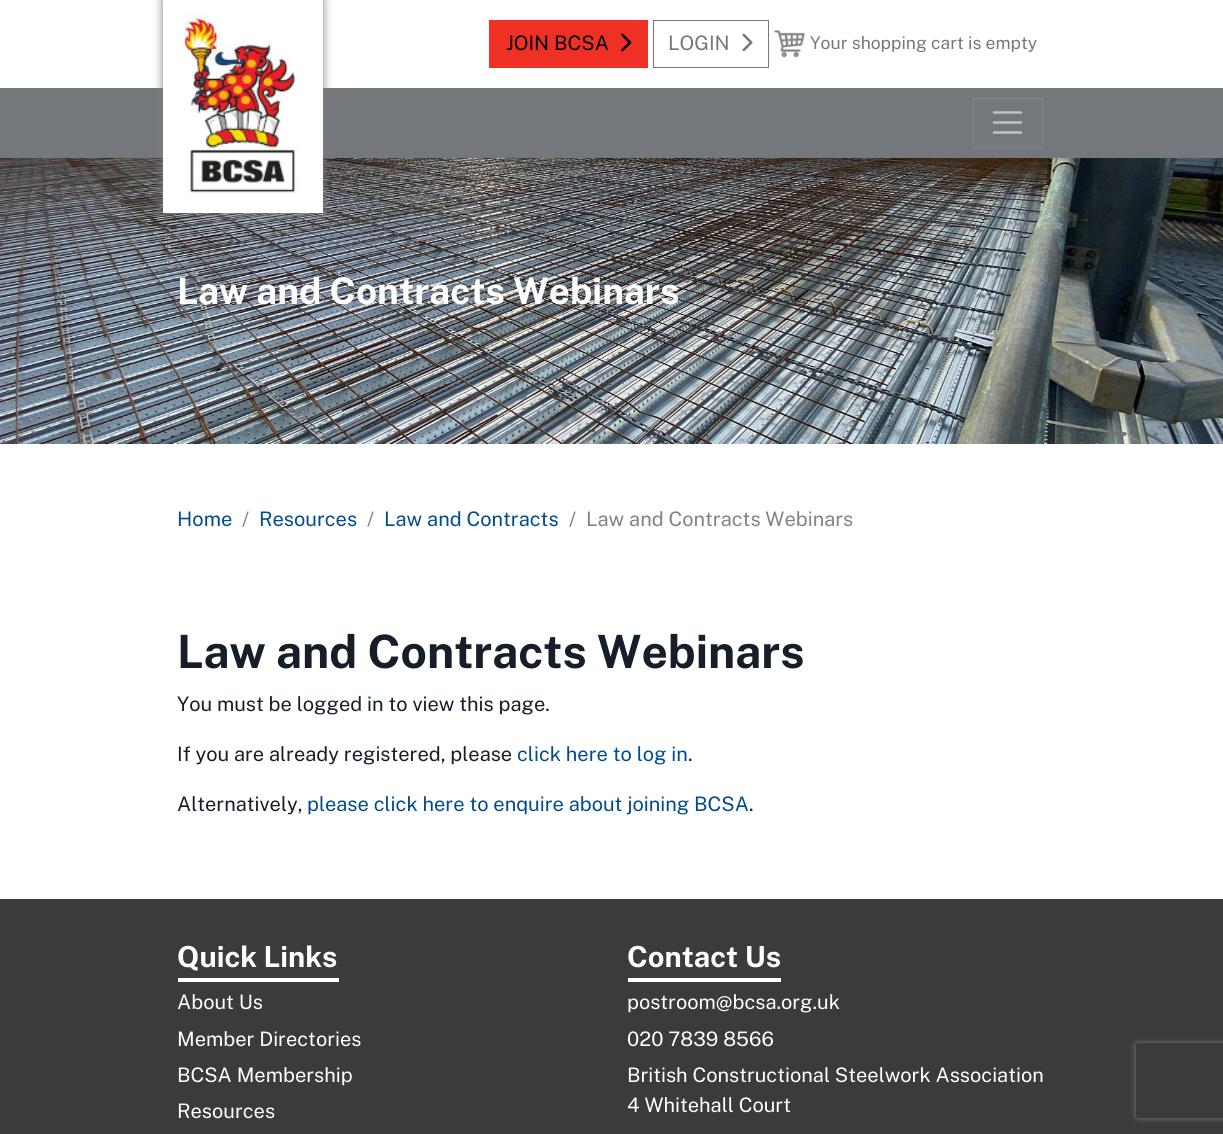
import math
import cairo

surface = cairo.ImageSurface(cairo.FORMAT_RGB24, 1223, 1134)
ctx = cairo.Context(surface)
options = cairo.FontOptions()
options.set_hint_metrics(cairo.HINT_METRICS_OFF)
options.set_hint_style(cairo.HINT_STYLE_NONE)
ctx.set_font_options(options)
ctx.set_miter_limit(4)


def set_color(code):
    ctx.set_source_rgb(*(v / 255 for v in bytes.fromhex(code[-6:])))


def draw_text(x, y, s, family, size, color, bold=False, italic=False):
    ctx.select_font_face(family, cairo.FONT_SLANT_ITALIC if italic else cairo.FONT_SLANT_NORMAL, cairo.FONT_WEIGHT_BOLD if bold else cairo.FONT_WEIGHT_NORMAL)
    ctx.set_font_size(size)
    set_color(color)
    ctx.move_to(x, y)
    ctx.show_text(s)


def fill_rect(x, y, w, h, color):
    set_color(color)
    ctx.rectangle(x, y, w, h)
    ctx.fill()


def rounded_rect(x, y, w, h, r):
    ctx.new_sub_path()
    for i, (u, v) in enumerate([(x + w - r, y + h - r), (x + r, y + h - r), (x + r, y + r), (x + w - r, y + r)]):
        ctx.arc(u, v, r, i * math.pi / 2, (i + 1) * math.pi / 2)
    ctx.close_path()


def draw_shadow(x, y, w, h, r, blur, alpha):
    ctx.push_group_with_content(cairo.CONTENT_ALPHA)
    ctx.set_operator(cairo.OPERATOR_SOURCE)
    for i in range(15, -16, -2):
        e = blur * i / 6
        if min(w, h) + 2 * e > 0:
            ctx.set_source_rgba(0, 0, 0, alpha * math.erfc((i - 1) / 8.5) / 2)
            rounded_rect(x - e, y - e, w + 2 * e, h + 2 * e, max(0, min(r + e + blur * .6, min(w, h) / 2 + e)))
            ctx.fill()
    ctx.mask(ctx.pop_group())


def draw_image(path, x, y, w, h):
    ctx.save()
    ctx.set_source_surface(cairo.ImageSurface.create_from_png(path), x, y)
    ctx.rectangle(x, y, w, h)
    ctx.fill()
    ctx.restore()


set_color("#ffffff")
ctx.paint()
fill_rect(0, 88, 1223, 70, "#74777b")
draw_image("assets/img5.png", 0, 158, 1223, 286)
set_color("#808080")
draw_shadow(163, 0, 160, 213, 0, 5, 1)
fill_rect(163, 0, 160, 213, "#ffffff")
draw_image("assets/img1.png", 181, 12, 120, 181)
fill_rect(489, 20, 159, 48, "#ee3124")
draw_text(506, 50, "JOIN BCSA", "Public Sans", 20, "#000000")
draw_image("assets/img2.png", 621, 33, 11, 19)
ctx.rectangle(653.5, 20.5, 115, 47)
set_color("#74777b")
ctx.set_line_width(1)
ctx.stroke()
draw_text(668, 50, "LOGIN", "Public Sans", 20, "#74777b")
draw_image("assets/img3.png", 742, 33, 11, 19)
draw_image("assets/img4.png", 773, 30, 32, 28)
draw_text(810, 49, "Your shopping cart is empty", "Public Sans", 17.5, "#74777b")
ctx.rectangle(973.5, 98.5, 69, 49)
set_color("#828588")
ctx.stroke()
ctx.new_path()
ctx.move_to(994, 112.5)
ctx.line_to(1021, 112.5)
ctx.move_to(994, 122.5)
ctx.line_to(1021, 122.5)
ctx.move_to(994, 132.5)
ctx.line_to(1021, 132.5)
set_color("#c0c2c4")
ctx.set_line_width(2.5)
ctx.set_line_cap(cairo.LINE_CAP_ROUND)
ctx.stroke()
draw_text(177, 304, "Law and Contracts Webinars", "Public Sans", 36.75, "#ffffff", bold=True)
draw_text(177, 526, "Home", "Public Sans", 20, "#004b8d")
draw_text(242, 526, "/", "Public Sans", 20, "#808285")
draw_text(259, 526, "Resources", "Public Sans", 20, "#004b8d")
draw_text(367, 526, "/", "Public Sans", 20, "#808285")
draw_text(384, 526, "Law and Contracts", "Public Sans", 20, "#004b8d")
draw_text(569, 526, "/", "Public Sans", 20, "#808285")
draw_text(586, 526, "Law and Contracts Webinars", "Public Sans", 20, "#808285")
draw_text(177, 668, "Law and Contracts Webinars", "Public Sans", 45.9, "#151e29", bold=True)
draw_text(177, 711, "You must be logged in to view this page.", "Public Sans", 20, "#151e29")
draw_text(177, 761, "If you are already registered, please", "Public Sans", 20, "#151e29")
draw_text(517, 761, "click here to log in", "Public Sans", 20, "#004b8d")
draw_text(688, 761, ".", "Public Sans", 20, "#151e29")
draw_text(177, 811, "Alternatively,", "Public Sans", 20, "#151e29")
draw_text(307, 811, "please click here to enquire about joining BCSA", "Public Sans", 20, "#004b8d")
draw_text(749, 811, ".", "Public Sans", 20, "#151e29")
fill_rect(0, 899, 1223, 235, "#3b3b3b")
fill_rect(178, 978, 161, 4, "#ffffff")
draw_text(177, 967, "Quick Links", "Public Sans", 29, "#ffffff", bold=True)
draw_text(177, 1009, "About Us", "Public Sans", 20, "#ffffff")
draw_text(177, 1046, "Member Directories", "Public Sans", 20, "#ffffff")
draw_text(177, 1082, "BCSA Membership", "Public Sans", 20, "#ffffff")
draw_text(177, 1118, "Resources", "Public Sans", 20, "#ffffff")
fill_rect(628, 978, 153, 4, "#ffffff")
draw_text(627, 967, "Contact Us", "Public Sans", 29, "#ffffff", bold=True)
draw_text(627, 1009, "postroom@bcsa.org.uk", "Public Sans", 20, "#ffffff")
draw_text(627, 1046, "020 7839 8566", "Public Sans", 20, "#ffffff")
draw_text(627, 1082, "British Constructional Steelwork Association", "Public Sans", 20, "#ffffff")
draw_text(627, 1112, "4 Whitehall Court", "Public Sans", 20, "#ffffff")
ctx.save()
ctx.set_fill_rule(cairo.FILL_RULE_EVEN_ODD)
ctx.new_path()
ctx.move_to(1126, 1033)
ctx.line_to(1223, 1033)
ctx.line_to(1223, 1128)
ctx.line_to(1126, 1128)
ctx.close_path()
ctx.move_to(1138.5, 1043)
ctx.line_to(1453.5, 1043)
ctx.curve_to(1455, 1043, 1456, 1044, 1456, 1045.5)
ctx.line_to(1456, 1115.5)
ctx.curve_to(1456, 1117, 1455, 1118, 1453.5, 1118)
ctx.line_to(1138.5, 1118)
ctx.curve_to(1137, 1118, 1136, 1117, 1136, 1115.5)
ctx.line_to(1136, 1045.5)
ctx.curve_to(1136, 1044, 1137, 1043, 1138.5, 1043)
ctx.close_path()
ctx.clip()
set_color("#808080")
draw_shadow(1136, 1043, 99, 75, 2.5, 3, 1)
ctx.restore()
surface.write_to_png("output.png")
